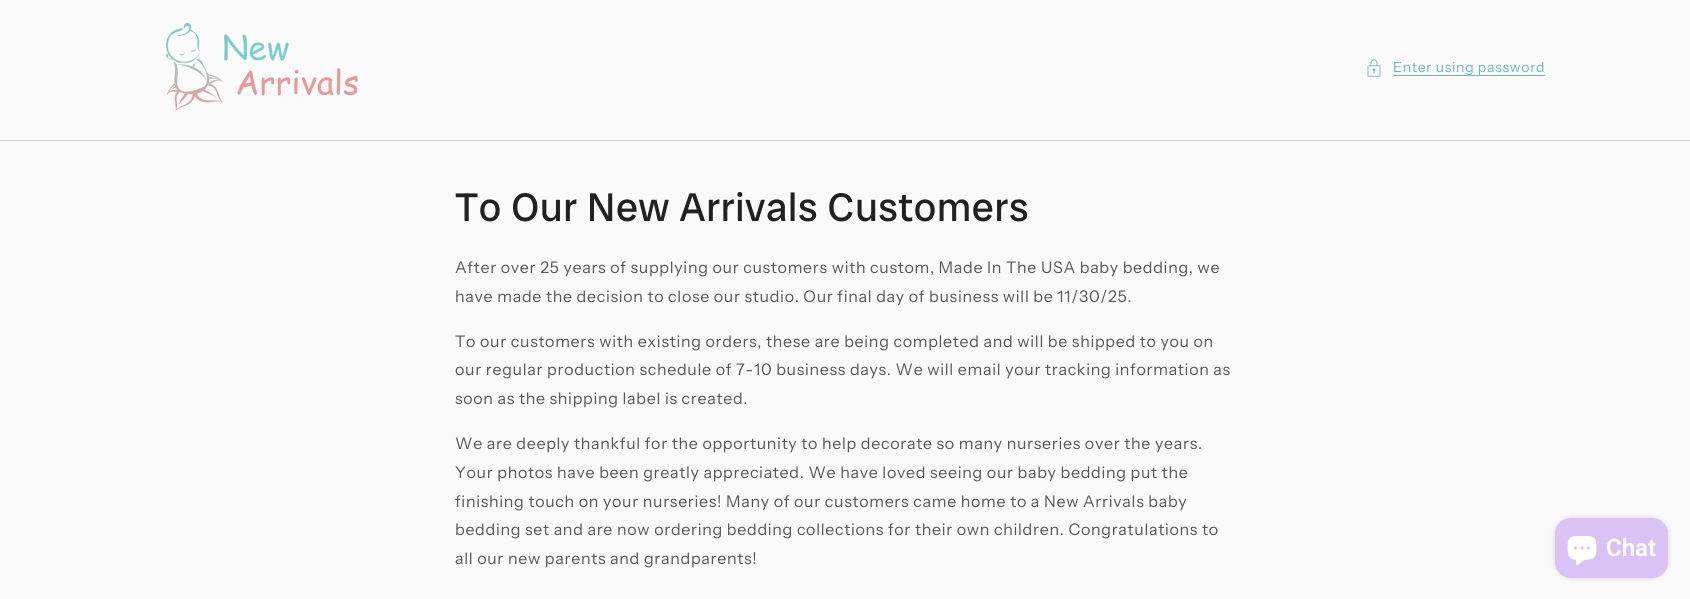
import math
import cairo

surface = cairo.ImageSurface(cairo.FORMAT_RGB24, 1690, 599)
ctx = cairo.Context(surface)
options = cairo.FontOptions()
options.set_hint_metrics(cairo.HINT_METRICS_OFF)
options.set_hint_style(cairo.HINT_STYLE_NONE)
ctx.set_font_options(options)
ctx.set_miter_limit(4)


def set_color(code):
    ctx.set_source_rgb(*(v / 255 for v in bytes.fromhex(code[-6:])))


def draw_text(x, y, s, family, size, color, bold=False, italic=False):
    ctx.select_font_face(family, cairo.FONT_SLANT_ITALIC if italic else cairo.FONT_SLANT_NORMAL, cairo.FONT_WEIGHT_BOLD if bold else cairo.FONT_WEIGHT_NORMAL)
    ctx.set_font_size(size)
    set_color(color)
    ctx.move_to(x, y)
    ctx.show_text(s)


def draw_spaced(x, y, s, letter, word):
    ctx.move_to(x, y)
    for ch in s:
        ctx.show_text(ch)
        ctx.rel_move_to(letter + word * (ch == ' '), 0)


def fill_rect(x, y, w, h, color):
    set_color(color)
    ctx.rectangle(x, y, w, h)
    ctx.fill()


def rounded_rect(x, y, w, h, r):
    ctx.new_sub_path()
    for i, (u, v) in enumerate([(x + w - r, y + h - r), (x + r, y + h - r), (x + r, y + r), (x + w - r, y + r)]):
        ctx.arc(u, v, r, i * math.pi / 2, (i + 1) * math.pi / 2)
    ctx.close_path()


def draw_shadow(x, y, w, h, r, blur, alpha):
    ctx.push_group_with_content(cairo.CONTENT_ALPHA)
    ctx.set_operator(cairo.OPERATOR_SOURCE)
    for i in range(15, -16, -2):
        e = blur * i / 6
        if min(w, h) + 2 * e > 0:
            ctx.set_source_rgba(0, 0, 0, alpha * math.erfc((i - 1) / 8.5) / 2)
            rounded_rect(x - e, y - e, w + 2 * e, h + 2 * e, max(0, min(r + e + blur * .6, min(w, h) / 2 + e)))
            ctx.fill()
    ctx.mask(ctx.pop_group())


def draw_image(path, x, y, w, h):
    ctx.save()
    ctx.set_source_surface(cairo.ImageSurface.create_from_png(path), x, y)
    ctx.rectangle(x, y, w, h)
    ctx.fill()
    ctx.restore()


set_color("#fafafa")
ctx.paint()
draw_image("assets/img1.png", 165, 22, 193, 90)
draw_image("assets/img2.png", 1367, 59, 14, 18)
ctx.select_font_face("Instrument Sans")
ctx.set_font_size(14)
set_color("#6bb6bf")
draw_spaced(1393, 72, "Enter using password", 0.7, 0)
fill_rect(1393, 75, 152, 1, "#6bb6bf")
fill_rect(0, 140, 1690, 1, "#cfcfcf")
ctx.select_font_face("Radio Canada Big")
ctx.set_font_size(40)
set_color("#212121")
draw_spaced(455, 221, "To Our New Arrivals Customers", 0.6, 0)
ctx.select_font_face("Instrument Sans")
ctx.set_font_size(16)
set_color("#575757")
draw_spaced(455, 273, "After over 25 years of supplying our customers with custom, Made In The USA baby bedding, we", 0.7, 0)
draw_spaced(455, 302, "have made the decision to close our studio. Our final day of business will be 11/30/25.", 0.7, 0)
draw_spaced(455, 347, "To our customers with existing orders, these are being completed and will be shipped to you on", 0.7, 0)
draw_spaced(455, 375, "our regular production schedule of 7-10 business days. We will email your tracking information as", 0.7, 0)
draw_spaced(455, 404, "soon as the shipping label is created.", 0.7, 0)
draw_spaced(455, 449, "We are deeply thankful for the opportunity to help decorate so many nurseries over the years.", 0.7, 0)
draw_spaced(455, 478, "Your photos have been greatly appreciated. We have loved seeing our baby bedding put the", 0.7, 0)
draw_spaced(455, 507, "finishing touch on your nurseries! Many of our customers came home to a New Arrivals baby", 0.7, 0)
draw_spaced(455, 535, "bedding set and are now ordering bedding collections for their own children. Congratulations to", 0.7, 0)
draw_spaced(455, 564, "all our new parents and grandparents!", 0.7, 0)
set_color("#000000")
draw_shadow(1555, 518, 113, 60, 16, 2.5, 0.15)
set_color("#dbc2f4")
rounded_rect(1555, 518, 113, 60, 16)
ctx.fill()
draw_image("assets/img3.png", 1567, 536, 30, 29)
draw_text(1606, 556, "Chat", "Roboto SemiBold", 24, "#ffffff")
surface.write_to_png("output.png")
